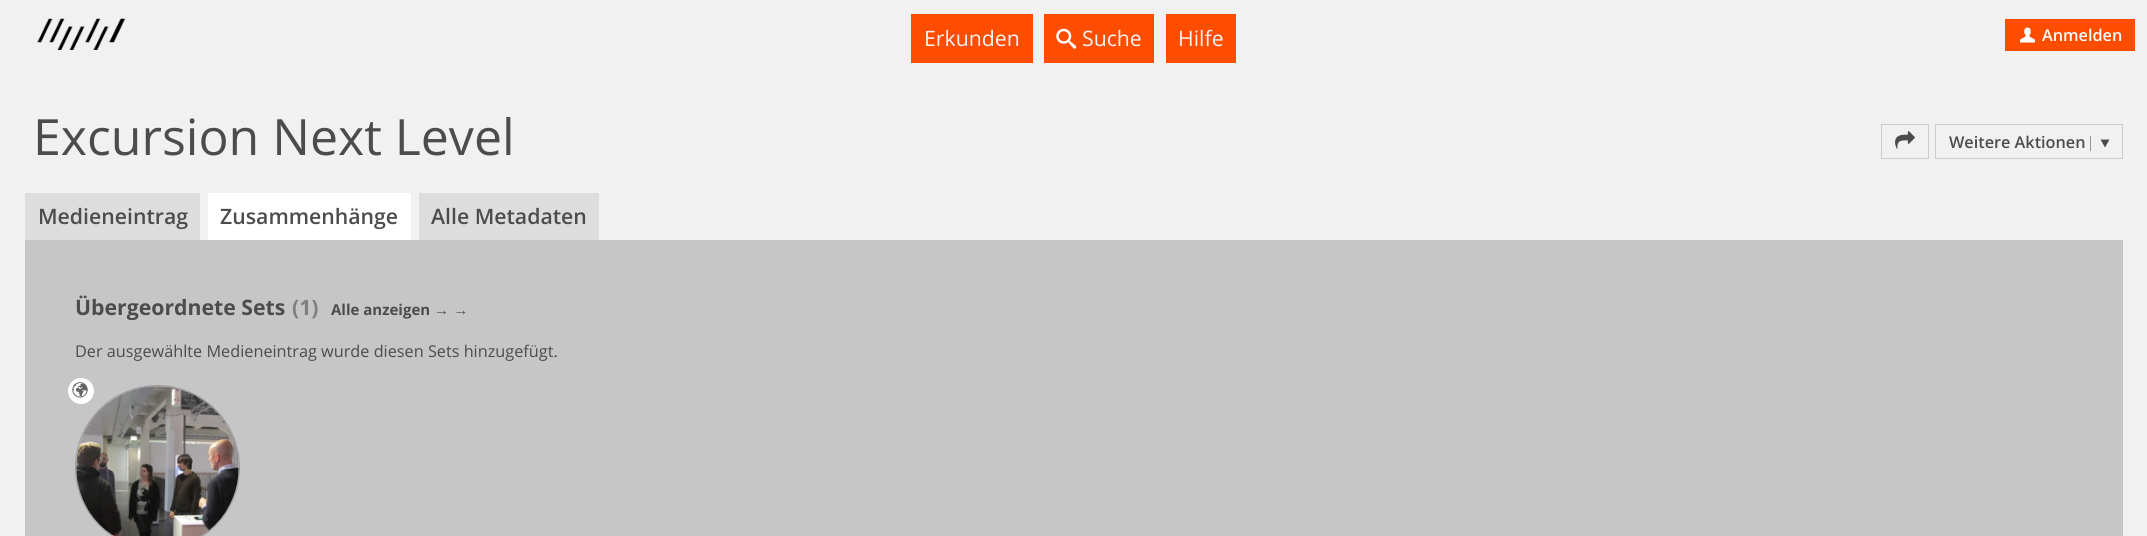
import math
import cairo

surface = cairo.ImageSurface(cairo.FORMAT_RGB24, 2147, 536)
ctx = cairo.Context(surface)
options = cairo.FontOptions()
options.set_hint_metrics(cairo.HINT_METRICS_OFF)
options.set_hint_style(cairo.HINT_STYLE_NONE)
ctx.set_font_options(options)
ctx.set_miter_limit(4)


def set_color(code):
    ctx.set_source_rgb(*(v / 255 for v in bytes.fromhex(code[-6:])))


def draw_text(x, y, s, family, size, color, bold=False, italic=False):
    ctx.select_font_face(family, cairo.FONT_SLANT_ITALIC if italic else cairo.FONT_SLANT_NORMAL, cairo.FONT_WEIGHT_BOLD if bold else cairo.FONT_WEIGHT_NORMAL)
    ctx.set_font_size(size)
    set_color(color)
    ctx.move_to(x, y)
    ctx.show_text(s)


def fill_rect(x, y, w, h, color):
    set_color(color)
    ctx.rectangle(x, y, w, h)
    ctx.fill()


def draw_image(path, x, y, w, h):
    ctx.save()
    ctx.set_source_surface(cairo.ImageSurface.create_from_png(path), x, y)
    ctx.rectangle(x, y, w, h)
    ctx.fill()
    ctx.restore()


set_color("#f1f1f1")
ctx.paint()
draw_image("assets/img1.png", 37, 18, 88, 32)
fill_rect(911, 14, 122, 49, "#ff4d00")
draw_text(924, 46, "Erkunden", "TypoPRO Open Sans", 21.25, "#f2f2f2")
fill_rect(1044, 14, 110, 49, "#ff4d00")
draw_image("assets/img2.png", 1056, 28, 21, 21)
draw_text(1082, 46, "Suche", "TypoPRO Open Sans", 21.25, "#f2f2f2")
fill_rect(1166, 14, 70, 49, "#ff4d00")
draw_text(1178, 46, "Hilfe", "TypoPRO Open Sans", 21.25, "#f2f2f2")
fill_rect(2005, 19, 130, 32, "#ff4d00")
draw_image("assets/img3.png", 2020, 27, 15, 16)
draw_text(2042, 41, "Anmelden", "TypoPRO Open Sans SemiBold", 16.25, "#ffffff")
draw_text(33, 155, "Excursion Next Level", "TypoPRO Open Sans", 50, "#4c4c4c")
ctx.rectangle(1881.5, 124.5, 47, 34)
set_color("#cccccc")
ctx.set_line_width(1)
ctx.stroke()
draw_image("assets/img4.png", 1895, 131, 20, 18)
ctx.rectangle(1935.5, 124.5, 187, 34)
ctx.stroke()
draw_text(1949, 148, "Weitere Aktionen", "TypoPRO Open Sans SemiBold", 16.25, "#4c4c4c")
fill_rect(2090, 136, 1, 15, "#999999")
set_color("#4c4c4c")
ctx.new_path()
ctx.move_to(2109.5, 139.5)
ctx.line_to(2100.5, 139.5)
ctx.line_to(2105, 147.5)
ctx.close_path()
ctx.fill()
fill_rect(25, 193, 175, 47, "#dddddd")
draw_text(38, 224, "Medieneintrag", "TypoPRO Open Sans SemiBold", 21.25, "#4c4c4c")
fill_rect(208, 193, 203, 47, "#ffffff")
draw_text(220, 224, "Zusammenhänge", "TypoPRO Open Sans SemiBold", 21.25, "#4c4c4c")
fill_rect(419, 193, 180, 47, "#dddddd")
draw_text(431, 224, "Alle Metadaten", "TypoPRO Open Sans SemiBold", 21.25, "#4c4c4c")
fill_rect(25, 240, 2098, 296, "#c6c6c6")
draw_text(75, 315, "Übergeordnete Sets", "TypoPRO Open Sans", 21.25, "#4c4c4c", bold=True)
draw_text(292, 315, "(1)", "TypoPRO Open Sans", 21.25, "#808080", bold=True)
draw_text(331, 315, "Alle anzeigen", "TypoPRO Open Sans", 15, "#4c4c4c", bold=True)
draw_text(434, 315, "→ →", "Liberation Sans", 15, "#4c4c4c", bold=True)
draw_text(75, 357, "Der ausgewählte Medieneintrag wurde diesen Sets hinzugefügt.", "TypoPRO Open Sans", 16.25, "#4c4c4c")
set_color("#ffffff")
ctx.new_path()
ctx.arc(157.5, 467.5, 82, 0, 2 * math.pi)
ctx.fill_preserve()
set_color("#9a9a9a")
ctx.stroke()
ctx.set_source_rgba(0.004, 0.004, 0.004, 0.3)
ctx.arc(157.5, 467.5, 81.5, 0, 2 * math.pi)
ctx.fill()
draw_image("assets/img6.png", 76, 386, 163, 150)
set_color("#ffffff")
ctx.arc(81, 391, 13, 0, 2 * math.pi)
ctx.fill()
draw_image("assets/img5.png", 72, 382, 16, 16)
surface.write_to_png("output.png")
